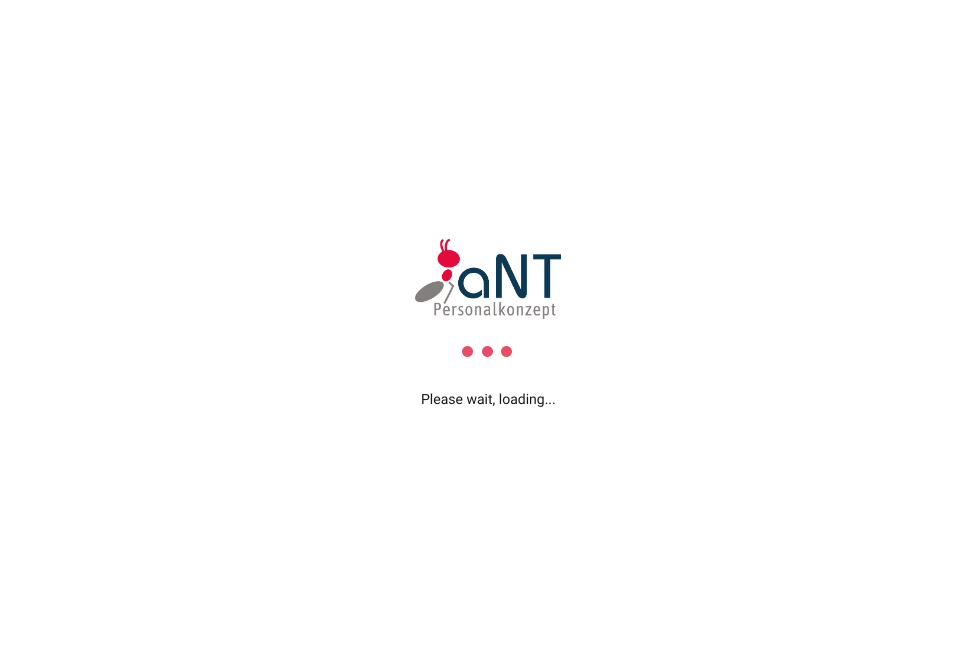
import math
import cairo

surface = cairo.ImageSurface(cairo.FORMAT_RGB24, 976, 662)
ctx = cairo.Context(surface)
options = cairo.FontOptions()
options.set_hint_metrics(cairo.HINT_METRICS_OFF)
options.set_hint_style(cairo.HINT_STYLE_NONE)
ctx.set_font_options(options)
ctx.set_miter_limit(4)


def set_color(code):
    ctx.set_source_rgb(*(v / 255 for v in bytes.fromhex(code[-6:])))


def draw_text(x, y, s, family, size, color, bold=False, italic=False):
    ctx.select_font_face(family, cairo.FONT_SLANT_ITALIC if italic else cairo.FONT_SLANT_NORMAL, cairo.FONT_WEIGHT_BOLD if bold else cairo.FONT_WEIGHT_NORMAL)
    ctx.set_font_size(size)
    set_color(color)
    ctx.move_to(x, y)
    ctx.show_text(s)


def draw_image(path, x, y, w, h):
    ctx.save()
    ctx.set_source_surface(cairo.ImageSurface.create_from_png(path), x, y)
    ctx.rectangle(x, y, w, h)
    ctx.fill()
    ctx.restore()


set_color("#ffffff")
ctx.paint()
draw_image("assets/img1.png", 415, 239, 146, 80)
set_color("#e94d65")
ctx.arc(467.5, 351.5, 5.5, 0, 2 * math.pi)
ctx.fill()
ctx.arc(487.5, 351.5, 5.5, 0, 2 * math.pi)
ctx.fill()
ctx.arc(506.5, 351.5, 5.5, 0, 2 * math.pi)
ctx.fill()
draw_text(421, 404, "Please wait, loading...", "Roboto", 14, "#181818")
surface.write_to_png("output.png")
